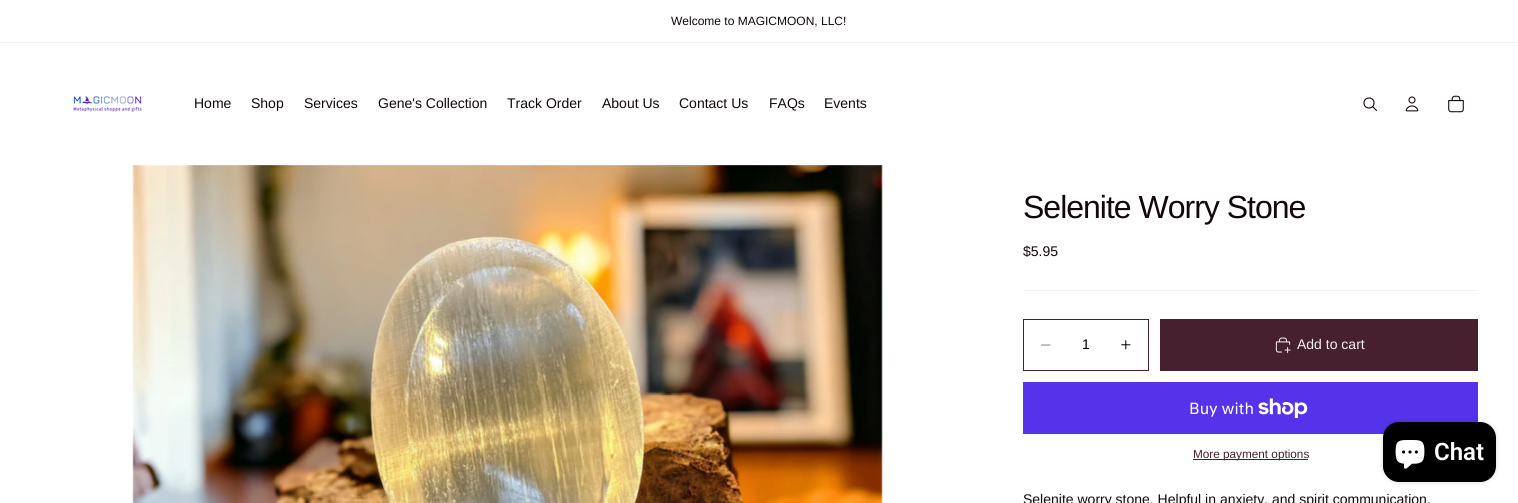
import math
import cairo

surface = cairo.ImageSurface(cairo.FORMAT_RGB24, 1518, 503)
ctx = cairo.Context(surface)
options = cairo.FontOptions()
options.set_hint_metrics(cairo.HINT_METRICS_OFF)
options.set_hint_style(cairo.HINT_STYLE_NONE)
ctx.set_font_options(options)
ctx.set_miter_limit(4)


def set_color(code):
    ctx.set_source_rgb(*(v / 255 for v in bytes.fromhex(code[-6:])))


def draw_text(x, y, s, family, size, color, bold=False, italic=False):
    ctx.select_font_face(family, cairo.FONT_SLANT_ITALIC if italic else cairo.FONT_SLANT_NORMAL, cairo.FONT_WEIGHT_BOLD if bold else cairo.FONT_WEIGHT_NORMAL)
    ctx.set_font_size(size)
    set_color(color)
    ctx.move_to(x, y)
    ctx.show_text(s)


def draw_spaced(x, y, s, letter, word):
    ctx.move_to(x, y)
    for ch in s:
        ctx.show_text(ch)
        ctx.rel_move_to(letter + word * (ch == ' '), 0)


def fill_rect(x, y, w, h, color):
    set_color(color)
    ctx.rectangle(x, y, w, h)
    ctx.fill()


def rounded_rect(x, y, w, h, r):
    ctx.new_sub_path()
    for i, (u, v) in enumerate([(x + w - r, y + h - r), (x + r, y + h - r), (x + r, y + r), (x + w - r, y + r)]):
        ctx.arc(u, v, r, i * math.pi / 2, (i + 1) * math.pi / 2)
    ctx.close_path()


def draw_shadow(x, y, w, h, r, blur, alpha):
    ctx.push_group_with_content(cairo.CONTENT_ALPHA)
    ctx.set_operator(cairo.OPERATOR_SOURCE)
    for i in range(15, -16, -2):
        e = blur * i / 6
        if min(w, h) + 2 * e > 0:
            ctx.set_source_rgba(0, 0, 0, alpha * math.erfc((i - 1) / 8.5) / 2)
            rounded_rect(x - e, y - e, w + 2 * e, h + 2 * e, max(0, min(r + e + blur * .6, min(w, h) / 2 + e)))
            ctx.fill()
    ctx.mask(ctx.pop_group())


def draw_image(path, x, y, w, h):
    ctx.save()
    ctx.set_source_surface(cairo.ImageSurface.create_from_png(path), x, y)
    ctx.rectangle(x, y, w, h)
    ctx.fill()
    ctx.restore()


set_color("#ffffff")
ctx.paint()
fill_rect(0, 42, 1518, 1, "#f4f0f2")
draw_text(671, 25, "Welcome to MAGICMOON, LLC!", "Arimo", 12, "#12080c")
draw_image("assets/img1.png", 73, 96, 69, 16)
draw_text(194, 108, "Home", "Arimo", 14, "#12080c")
draw_text(251, 108, "Shop", "Arimo", 14, "#12080c")
draw_text(304, 108, "Services", "Arimo", 14, "#12080c")
draw_text(378, 108, "Gene's Collection", "Arimo", 14, "#12080c")
draw_text(507, 108, "Track Order", "Arimo", 14, "#12080c")
draw_text(602, 108, "About Us", "Arimo", 14, "#12080c")
draw_text(679, 108, "Contact Us", "Arimo", 14, "#12080c")
draw_text(769, 108, "FAQs", "Arimo", 14, "#12080c")
draw_text(824, 108, "Events", "Arimo", 14, "#12080c")
ctx.new_path()
ctx.arc(1369, 103, 5, 0, 2 * math.pi)
ctx.set_line_width(1.1)
ctx.stroke()
ctx.new_path()
ctx.move_to(1373, 107)
ctx.line_to(1376.5, 110.5)
ctx.set_line_cap(cairo.LINE_CAP_ROUND)
ctx.set_line_join(cairo.LINE_JOIN_ROUND)
ctx.stroke()
draw_image("assets/img2.png", 1405, 96, 14, 16)
draw_image("assets/img3.png", 1448, 95, 16, 18)
draw_image("assets/img4.png", 132, 165, 751, 338)
ctx.set_font_size(32)
draw_spaced(1023, 218, "Selenite Worry Stone", -1, 0)
draw_text(1023, 256, "$5.95", "Arimo", 14, "#12080c")
fill_rect(1023, 290, 455, 1, "#f4f0f2")
ctx.rectangle(1023.5, 319.5, 125, 51)
set_color("#46202f")
ctx.set_line_width(1)
ctx.set_line_cap(cairo.LINE_CAP_BUTT)
ctx.set_line_join(cairo.LINE_JOIN_MITER)
ctx.stroke()
ctx.new_path()
ctx.move_to(1041.5, 345)
ctx.line_to(1050, 345)
set_color("#808080")
ctx.set_line_cap(cairo.LINE_CAP_ROUND)
ctx.stroke()
draw_text(1082, 349, "1", "Arimo", 14, "#000000")
draw_image("assets/img5.png", 1121, 340, 10, 10)
fill_rect(1160, 319, 318, 52, "#46202f")
draw_image("assets/img6.png", 1275, 337, 16, 17)
draw_text(1297, 349, "Add to cart", "Arimo", 14, "#f4f0f2")
fill_rect(1023, 382, 455, 52, "#5433eb")
draw_text(1189, 414, "Buy with", "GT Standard", 16, "#ffffff")
draw_image("assets/img7.png", 1258, 398, 50, 20)
fill_rect(1193, 459, 115, 1, "#46202f")
draw_text(1193, 458, "More payment options", "Arimo", 11.75, "#46202f")
draw_text(1023, 504, "Selenite worry stone. Helpful in anxiety, and spirit communication.", "Arimo", 14, "#12080c")
set_color("#000000")
draw_shadow(1383, 422, 113, 60, 16, 2.5, 0.15)
set_color("#000000")
rounded_rect(1383, 422, 113, 60, 16)
ctx.fill()
draw_image("assets/img8.png", 1395, 440, 30, 29)
draw_text(1434, 460, "Chat", "Roboto SemiBold", 24, "#ffffff")
surface.write_to_png("output.png")
